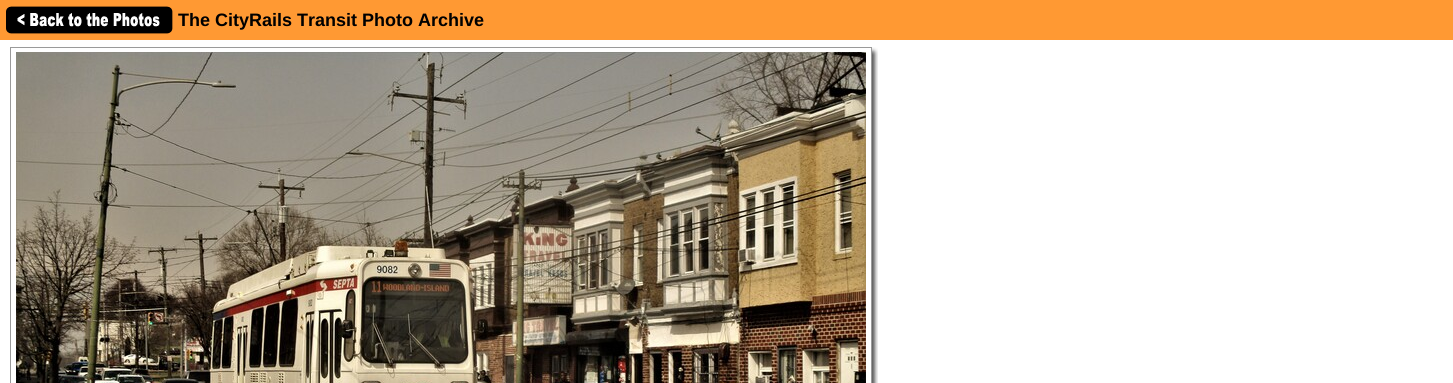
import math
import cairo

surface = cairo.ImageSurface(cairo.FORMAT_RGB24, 1453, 383)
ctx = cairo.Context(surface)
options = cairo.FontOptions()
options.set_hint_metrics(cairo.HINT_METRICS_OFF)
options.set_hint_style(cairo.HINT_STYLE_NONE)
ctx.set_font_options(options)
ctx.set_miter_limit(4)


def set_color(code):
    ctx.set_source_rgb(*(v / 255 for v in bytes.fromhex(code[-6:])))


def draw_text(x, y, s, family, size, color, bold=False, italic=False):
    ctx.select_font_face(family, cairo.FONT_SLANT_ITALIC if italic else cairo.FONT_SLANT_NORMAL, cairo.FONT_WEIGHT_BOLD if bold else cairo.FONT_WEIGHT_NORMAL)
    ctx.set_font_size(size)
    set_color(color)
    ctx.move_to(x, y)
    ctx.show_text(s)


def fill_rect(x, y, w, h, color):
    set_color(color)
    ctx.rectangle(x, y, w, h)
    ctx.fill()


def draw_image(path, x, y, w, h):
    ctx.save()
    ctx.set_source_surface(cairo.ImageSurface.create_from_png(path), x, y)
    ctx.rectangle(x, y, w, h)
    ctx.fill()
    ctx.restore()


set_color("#ffffff")
ctx.paint()
fill_rect(0, 0, 1453, 40, "#ff9933")
draw_image("assets/img1.png", 6, 6, 167, 28)
draw_text(178, 26, "The CityRails Transit Photo Archive", "Liberation Sans", 18, "#000000", bold=True)
ctx.rectangle(10.5, 47.5, 861, 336)
set_color("#9a9a9a")
ctx.set_line_width(1)
ctx.stroke()
draw_image("assets/img2.png", 16, 52, 850, 331)
draw_image("assets/img3.png", 872, 47, 6, 336)
surface.write_to_png("output.png")
